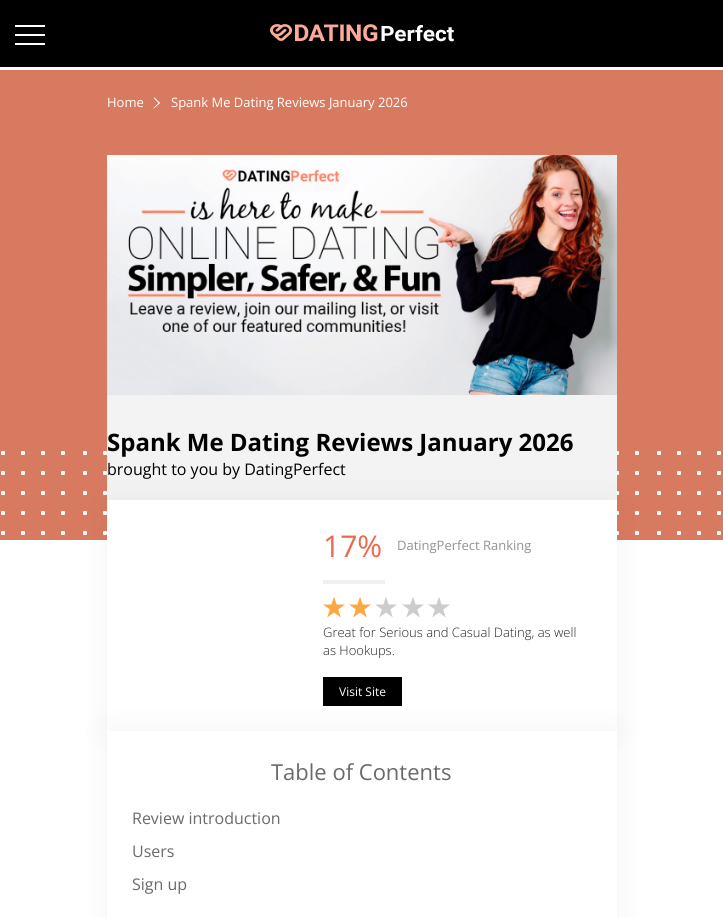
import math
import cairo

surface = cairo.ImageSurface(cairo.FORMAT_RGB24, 723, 917)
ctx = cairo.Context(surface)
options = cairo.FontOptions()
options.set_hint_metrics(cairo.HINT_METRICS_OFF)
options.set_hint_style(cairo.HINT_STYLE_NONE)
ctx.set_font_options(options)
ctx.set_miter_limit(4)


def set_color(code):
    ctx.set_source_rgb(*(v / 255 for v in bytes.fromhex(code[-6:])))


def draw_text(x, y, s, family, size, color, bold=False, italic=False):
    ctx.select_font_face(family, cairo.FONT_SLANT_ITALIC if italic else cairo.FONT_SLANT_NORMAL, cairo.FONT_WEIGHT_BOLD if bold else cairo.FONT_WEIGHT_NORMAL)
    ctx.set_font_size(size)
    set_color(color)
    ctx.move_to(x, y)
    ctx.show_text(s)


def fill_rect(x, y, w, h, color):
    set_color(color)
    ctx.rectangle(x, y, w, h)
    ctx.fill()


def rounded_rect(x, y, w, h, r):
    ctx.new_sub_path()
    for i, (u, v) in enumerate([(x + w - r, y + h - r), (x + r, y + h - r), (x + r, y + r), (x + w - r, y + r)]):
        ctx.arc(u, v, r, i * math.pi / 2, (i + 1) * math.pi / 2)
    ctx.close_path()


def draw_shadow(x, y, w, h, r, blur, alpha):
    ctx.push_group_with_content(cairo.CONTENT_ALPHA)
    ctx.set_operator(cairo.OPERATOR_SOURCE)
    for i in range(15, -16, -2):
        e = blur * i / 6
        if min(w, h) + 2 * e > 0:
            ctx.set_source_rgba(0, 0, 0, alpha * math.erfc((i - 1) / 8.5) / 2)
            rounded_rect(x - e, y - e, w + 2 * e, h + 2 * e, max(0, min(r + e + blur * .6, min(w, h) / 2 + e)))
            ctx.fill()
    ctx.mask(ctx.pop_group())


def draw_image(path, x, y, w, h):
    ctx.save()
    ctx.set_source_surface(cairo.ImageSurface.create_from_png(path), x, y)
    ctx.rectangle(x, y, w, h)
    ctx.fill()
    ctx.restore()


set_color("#ffffff")
ctx.paint()
fill_rect(0, 0, 723, 67, "#000000")
fill_rect(15, 25, 30, 2, "#ffffff")
fill_rect(15, 34, 30, 2, "#ffffff")
fill_rect(15, 43, 30, 2, "#ffffff")
draw_image("assets/img1.png", 270, 24, 184, 18)
fill_rect(0, 70, 723, 470, "#d87a60")
draw_image("assets/img2.png", 1, 451, 720, 84)
draw_text(107, 107, "Home", "Open Sans", 13, "#ffffff")
ctx.new_path()
ctx.move_to(153.5, 98)
ctx.line_to(154.5, 97.5)
ctx.line_to(160, 103)
ctx.line_to(159, 103.5)
ctx.close_path()
ctx.fill()
ctx.new_path()
ctx.move_to(153.5, 108)
ctx.line_to(159, 102.5)
ctx.line_to(160, 103)
ctx.line_to(154, 108.5)
ctx.close_path()
ctx.fill()
draw_text(171, 107, "Spank Me Dating Reviews January 2026", "Open Sans", 13, "#ffffff")
draw_image("assets/img3.png", 107, 155, 510, 240)
fill_rect(107, 395, 510, 105, "#f3f3f3")
draw_text(107, 451, "Spank Me Dating Reviews January 2026", "Open Sans", 24, "#000000", bold=True)
draw_text(107, 475, "brought to you by DatingPerfect", "Open Sans", 16, "#000000")
set_color("#000000")
draw_shadow(107, 500, 510, 231, 0, 15, 0.05)
fill_rect(107, 500, 510, 231, "#ffffff")
draw_text(323, 557, "17%", "Open Sans", 30, "#ea694f")
fill_rect(323, 580, 62, 4, "#f0f0f0")
draw_text(397, 550, "DatingPerfect Ranking", "Open Sans", 13, "#929292")
draw_image("assets/img4.png", 323, 596, 22, 22)
draw_image("assets/img5.png", 349, 596, 22, 22)
draw_image("assets/img6.png", 375, 597, 22, 21)
draw_image("assets/img6.png", 402, 597, 22, 21)
draw_image("assets/img6.png", 428, 597, 22, 21)
draw_text(323, 637, "Great for Serious and Casual Dating, as well", "Open Sans Light", 13, "#232323")
draw_text(323, 655, "as Hookups.", "Open Sans Light", 13, "#232323")
fill_rect(323, 677, 79, 29, "#000000")
draw_text(339, 696, "Visit Site", "Open Sans", 12, "#ffffff")
set_color("#000000")
draw_shadow(107, 731, 510, 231, 0, 15, 0.05)
fill_rect(107, 731, 510, 186, "#ffffff")
draw_text(271, 780, "Table of Contents", "Open Sans", 22, "#6a6a6a")
draw_text(132, 824, "Review introduction", "Open Sans", 16, "#6a6a6a")
draw_text(132, 857, "Users", "Open Sans", 16, "#6a6a6a")
draw_text(132, 890, "Sign up", "Open Sans", 16, "#6a6a6a")
surface.write_to_png("output.png")
